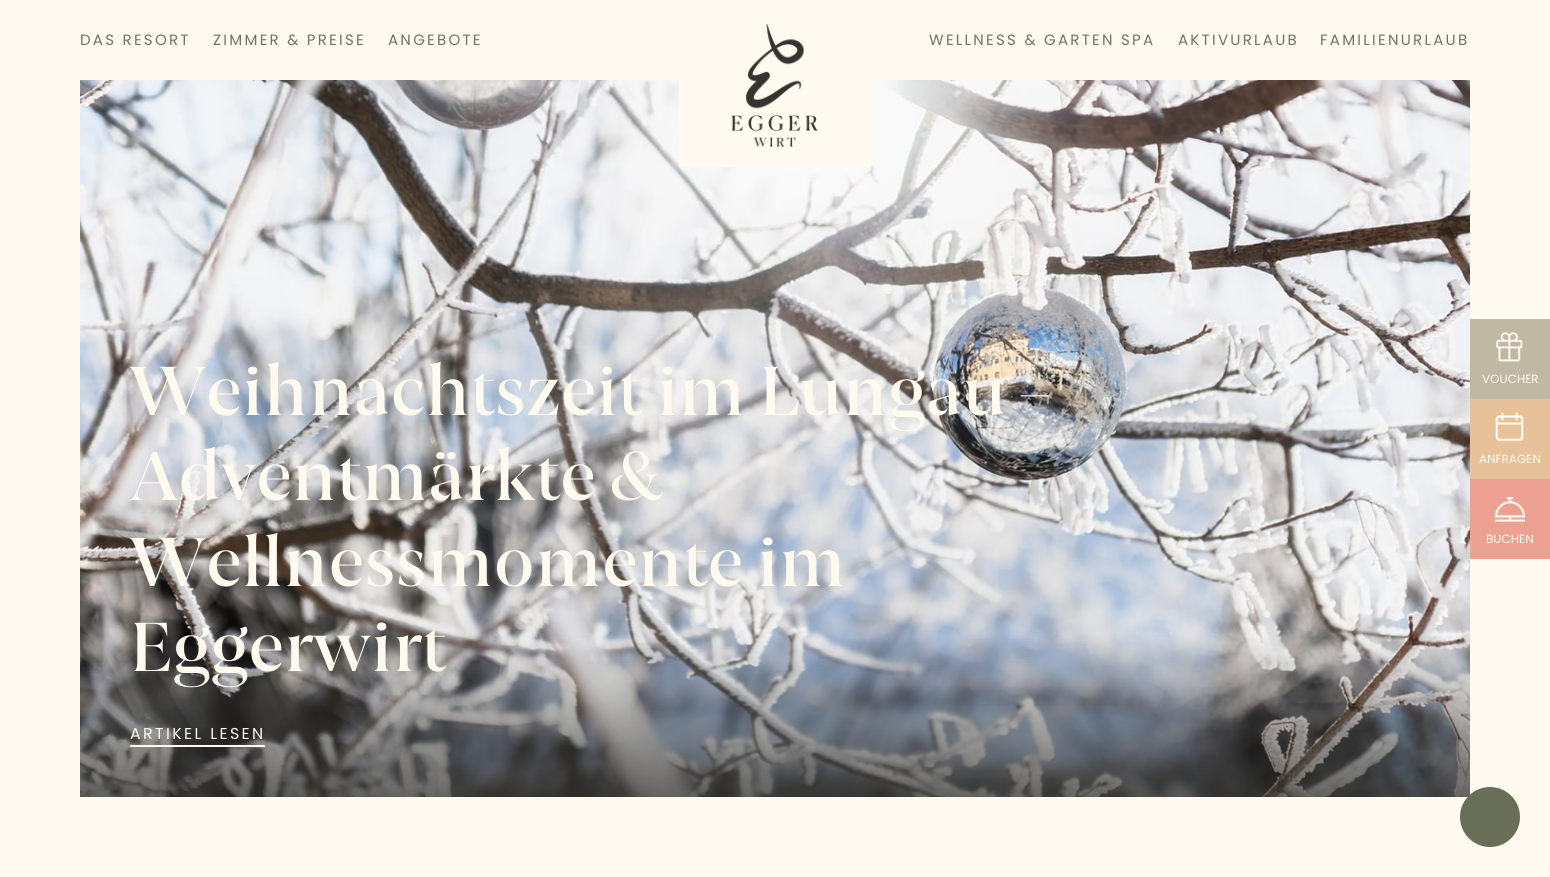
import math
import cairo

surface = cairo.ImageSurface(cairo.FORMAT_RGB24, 1550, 877)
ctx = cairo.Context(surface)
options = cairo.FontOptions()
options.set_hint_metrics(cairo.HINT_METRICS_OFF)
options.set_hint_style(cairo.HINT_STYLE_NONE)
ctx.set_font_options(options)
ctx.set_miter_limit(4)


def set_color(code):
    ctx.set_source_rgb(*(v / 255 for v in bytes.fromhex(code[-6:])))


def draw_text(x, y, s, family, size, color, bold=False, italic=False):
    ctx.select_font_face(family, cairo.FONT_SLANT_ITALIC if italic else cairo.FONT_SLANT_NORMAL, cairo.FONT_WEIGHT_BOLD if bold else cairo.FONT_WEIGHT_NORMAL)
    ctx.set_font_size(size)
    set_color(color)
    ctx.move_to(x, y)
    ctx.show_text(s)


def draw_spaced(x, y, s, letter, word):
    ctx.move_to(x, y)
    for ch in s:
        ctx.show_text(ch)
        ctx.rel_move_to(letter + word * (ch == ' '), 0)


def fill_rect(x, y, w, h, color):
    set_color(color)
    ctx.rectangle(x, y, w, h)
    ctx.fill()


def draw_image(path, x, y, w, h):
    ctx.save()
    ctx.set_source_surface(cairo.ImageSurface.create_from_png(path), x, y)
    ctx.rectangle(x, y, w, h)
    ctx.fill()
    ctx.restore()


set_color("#fffaef")
ctx.paint()
ctx.select_font_face("Poppins")
ctx.set_font_size(15)
set_color("#73716a")
draw_spaced(80, 45, "DAS RESORT", 2.25, 0)
draw_spaced(213, 45, "ZIMMER & PREISE", 2.25, 0)
draw_spaced(388, 45, "ANGEBOTE", 2.25, 0)
draw_image("assets/img6.png", 80, 80, 1390, 717)
fill_rect(679, 80, 192, 87, "#fffaef")
draw_image("assets/img1.png", 745, 24, 60, 85)
draw_image("assets/img2.png", 731, 115, 87, 32)
set_color("#73716a")
draw_spaced(929, 45, "WELLNESS & GARTEN SPA", 2.25, 0)
draw_spaced(1178, 45, "AKTIVURLAUB", 2.25, 0)
draw_spaced(1320, 45, "FAMILIENURLAUB", 2.25, 0)
fill_rect(1470, 319, 80, 80, "#c1b8a4")
draw_image("assets/img3.png", 1496, 332, 27, 30)
draw_text(1482, 383, "VOUCHER", "Poppins", 12, "#fffaef")
fill_rect(1470, 399, 80, 80, "#e7c199")
draw_image("assets/img4.png", 1495, 412, 29, 30)
draw_text(1479, 463, "ANFRAGEN", "Poppins", 12, "#fffaef")
fill_rect(1470, 479, 80, 80, "#eda193")
draw_image("assets/img5.png", 1495, 497, 30, 25)
draw_text(1486, 543, "BUCHEN", "Poppins", 12, "#fffaef")
draw_text(130, 415, "Weihnachtszeit im Lungau –", "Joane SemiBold", 66.5, "#fffaef")
draw_text(130, 500, "Adventmärkte &", "Joane SemiBold", 66.5, "#fffaef")
draw_text(130, 586, "Wellnessmomente im", "Joane SemiBold", 66.5, "#fffaef")
draw_text(130, 671, "Eggerwirt", "Joane SemiBold", 66.5, "#fffaef")
ctx.select_font_face("Poppins")
ctx.set_font_size(15.75)
draw_spaced(130, 739, "ARTIKEL LESEN", 2.4, 0)
fill_rect(130, 745, 135, 2, "#fffaef")
set_color("#696e58")
ctx.new_path()
ctx.arc(1490, 817, 30, 0, 2 * math.pi)
ctx.fill()
surface.write_to_png("output.png")
